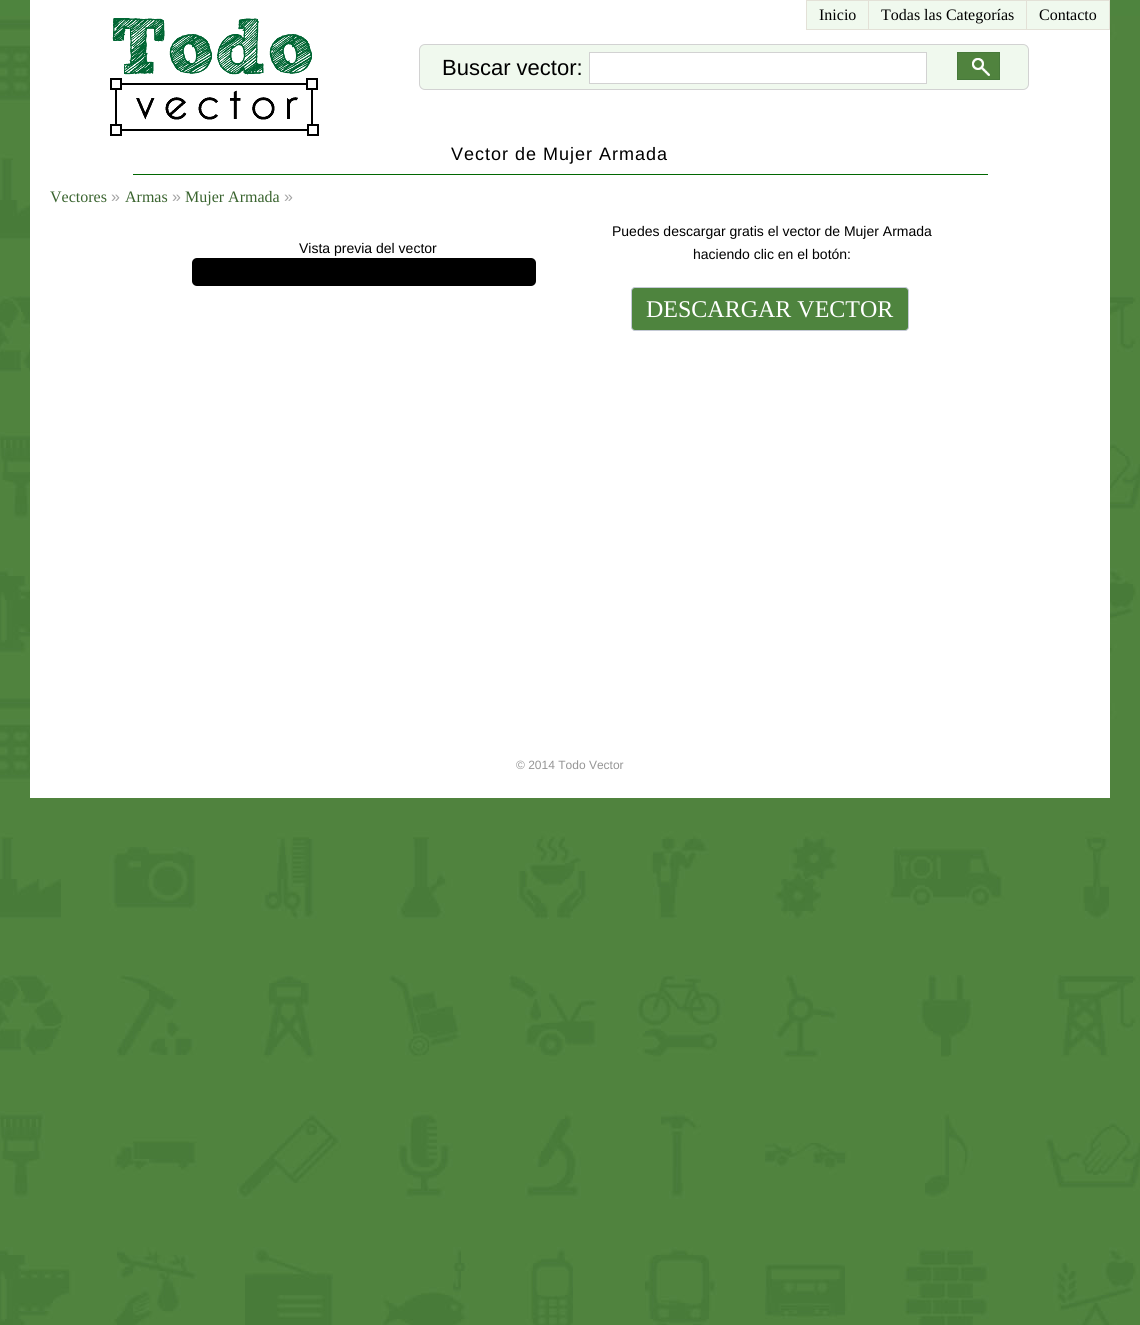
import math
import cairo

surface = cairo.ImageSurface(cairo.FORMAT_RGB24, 1140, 1325)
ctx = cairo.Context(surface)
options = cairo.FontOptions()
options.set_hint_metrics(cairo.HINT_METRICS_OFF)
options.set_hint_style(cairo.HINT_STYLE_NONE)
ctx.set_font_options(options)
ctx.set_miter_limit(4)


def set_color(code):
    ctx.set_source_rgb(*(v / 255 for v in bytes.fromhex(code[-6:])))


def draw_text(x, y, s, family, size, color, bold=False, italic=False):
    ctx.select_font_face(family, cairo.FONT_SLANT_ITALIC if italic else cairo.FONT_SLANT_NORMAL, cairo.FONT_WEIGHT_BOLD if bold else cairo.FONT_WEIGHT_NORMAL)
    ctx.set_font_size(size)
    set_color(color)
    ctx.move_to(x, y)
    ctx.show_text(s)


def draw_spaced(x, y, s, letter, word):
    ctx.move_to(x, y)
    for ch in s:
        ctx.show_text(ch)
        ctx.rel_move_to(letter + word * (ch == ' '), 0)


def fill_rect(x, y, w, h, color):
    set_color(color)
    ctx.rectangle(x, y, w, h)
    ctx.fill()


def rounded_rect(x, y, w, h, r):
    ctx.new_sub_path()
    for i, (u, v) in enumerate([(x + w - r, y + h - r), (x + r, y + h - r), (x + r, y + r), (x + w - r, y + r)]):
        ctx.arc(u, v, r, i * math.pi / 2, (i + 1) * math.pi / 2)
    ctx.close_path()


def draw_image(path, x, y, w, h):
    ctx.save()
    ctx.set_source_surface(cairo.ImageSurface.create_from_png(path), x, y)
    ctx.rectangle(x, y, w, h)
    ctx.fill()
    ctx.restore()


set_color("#4e843e")
ctx.paint()
draw_image("assets/img1.png", 0, 16, 1140, 1309)
fill_rect(30, 0, 1080, 798, "#ffffff")
set_color("#f0f9ee")
ctx.rectangle(806.5, 0.5, 62, 29)
ctx.fill_preserve()
set_color("#e3e1d7")
ctx.set_line_width(1)
ctx.stroke()
draw_text(819, 20, "Inicio", "Liberation Serif", 16, "#000000")
fill_rect(869, 1, 157, 28, "#f0f9ee")
fill_rect(869, 0, 241, 1, "#e3e1d7")
fill_rect(1026, 0, 1, 30, "#e3e1d7")
fill_rect(869, 29, 158, 1, "#e3e1d7")
draw_text(881, 20, "Todas las Categorías", "Liberation Serif", 16, "#000000")
fill_rect(1027, 1, 82, 28, "#f0f9ee")
fill_rect(1109, 0, 1, 30, "#e3e1d7")
fill_rect(1027, 29, 83, 1, "#e3e1d7")
draw_text(1039, 20, "Contacto", "Liberation Serif", 16, "#000000")
draw_image("assets/img2.png", 110, 18, 209, 118)
set_color("#f0f9ee")
rounded_rect(419.5, 44.5, 609, 45, 5.5)
ctx.fill_preserve()
set_color("#d2d2d2")
ctx.stroke()
draw_text(442, 75, "Buscar vector:", "Liberation Sans", 22, "#000000")
set_color("#ffffff")
ctx.rectangle(589.5, 52.5, 337, 31)
ctx.fill_preserve()
set_color("#d2d2d2")
ctx.stroke()
draw_image("assets/img3.png", 957, 52, 43, 28)
ctx.set_font_size(18)
set_color("#000000")
draw_spaced(451, 160, "Vector de Mujer Armada", 1, 0)
fill_rect(133, 174, 855, 1, "#016701")
draw_text(50, 202, "Vectores", "Liberation Serif", 16, "#3a642f")
draw_text(111, 202, "»", "Liberation Sans", 16, "#a3a3a3")
draw_text(125, 202, "Armas", "Liberation Serif", 16, "#3a642f")
draw_text(172, 202, "»", "Liberation Sans", 16, "#a3a3a3")
draw_text(185, 202, "Mujer Armada", "Liberation Serif", 16, "#3a642f")
draw_text(284, 202, "»", "Liberation Sans", 16, "#a3a3a3")
draw_text(299, 253, "Vista previa del vector", "Liberation Sans", 14, "#000000")
rounded_rect(192, 258, 344, 28, 5)
ctx.fill()
draw_text(612, 236, "Puedes descargar gratis el vector de Mujer Armada", "Liberation Sans", 14, "#000000")
draw_text(693, 259, "haciendo clic en el botón:", "Liberation Sans", 14, "#000000")
set_color("#4e843e")
rounded_rect(631.5, 287.5, 277, 43, 3.5)
ctx.fill_preserve()
set_color("#c5cad6")
ctx.stroke()
draw_text(646, 317, "DESCARGAR VECTOR", "Liberation Serif", 24, "#ffffff")
draw_text(516, 769, "© 2014 Todo Vector", "Liberation Sans", 12, "#959595")
surface.write_to_png("output.png")
